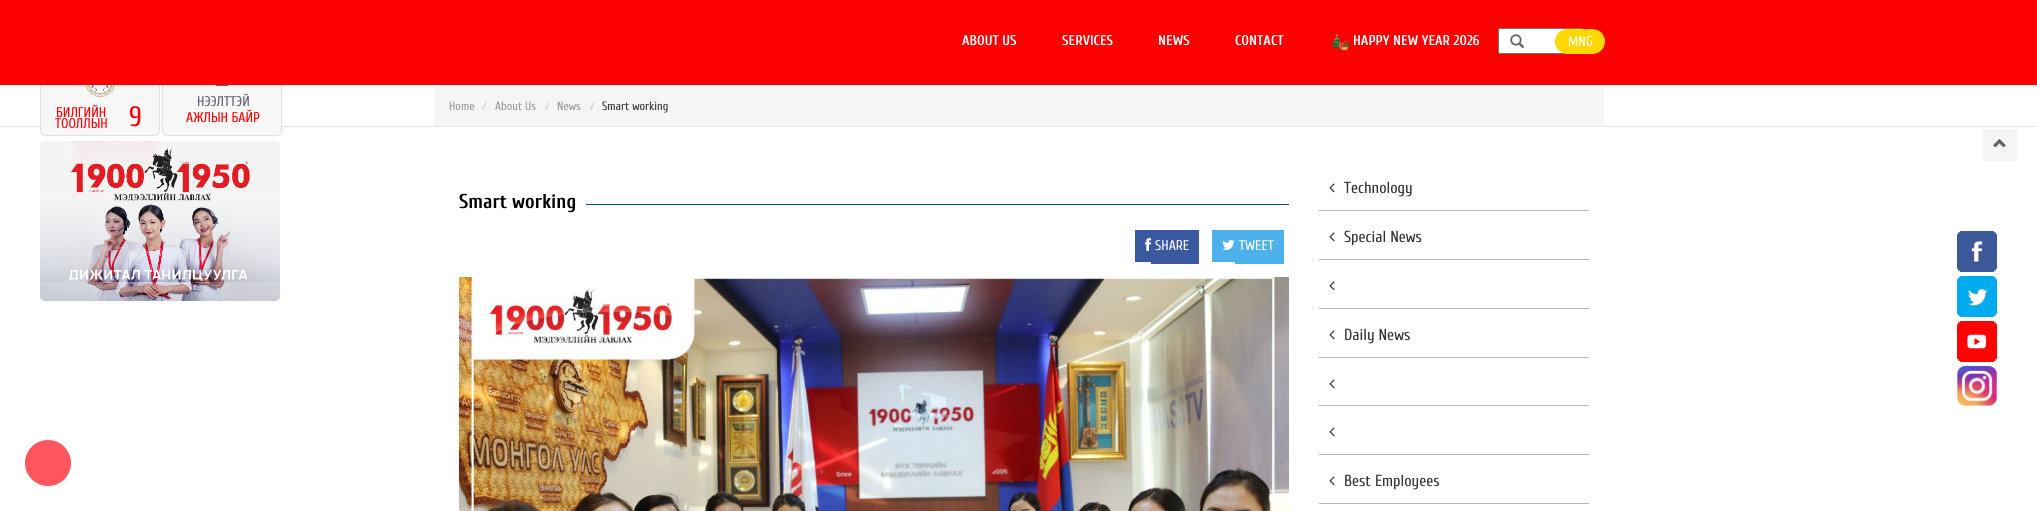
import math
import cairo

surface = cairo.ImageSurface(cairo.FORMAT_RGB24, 2037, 511)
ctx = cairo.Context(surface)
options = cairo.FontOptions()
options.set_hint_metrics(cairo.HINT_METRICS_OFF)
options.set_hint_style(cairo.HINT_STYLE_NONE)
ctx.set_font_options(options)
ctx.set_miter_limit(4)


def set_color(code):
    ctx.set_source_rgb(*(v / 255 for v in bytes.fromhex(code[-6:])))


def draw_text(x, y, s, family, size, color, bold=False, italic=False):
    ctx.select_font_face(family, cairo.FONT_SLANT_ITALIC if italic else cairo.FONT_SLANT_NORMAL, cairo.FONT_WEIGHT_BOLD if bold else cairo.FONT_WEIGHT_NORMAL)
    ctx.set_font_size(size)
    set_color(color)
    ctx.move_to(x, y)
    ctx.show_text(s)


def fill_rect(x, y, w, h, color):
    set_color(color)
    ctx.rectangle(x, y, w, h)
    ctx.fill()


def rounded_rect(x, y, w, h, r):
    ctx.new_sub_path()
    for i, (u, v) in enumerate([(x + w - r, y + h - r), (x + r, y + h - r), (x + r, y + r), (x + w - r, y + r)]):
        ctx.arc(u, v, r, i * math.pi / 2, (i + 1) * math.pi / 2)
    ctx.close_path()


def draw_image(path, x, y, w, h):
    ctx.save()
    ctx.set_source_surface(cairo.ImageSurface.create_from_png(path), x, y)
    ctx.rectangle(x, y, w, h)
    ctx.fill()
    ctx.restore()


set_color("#ffffff")
ctx.paint()
fill_rect(0, 126, 2037, 1, "#e6e6e6")
set_color("#f7f7f7")
rounded_rect(40.5, 56.5, 119, 79, 4.5)
ctx.fill_preserve()
set_color("#e1e1e1")
ctx.set_line_width(1)
ctx.stroke()
draw_image("assets/img1.png", 85, 85, 30, 12)
draw_text(56, 117, "БИЛГИЙН", "Cuprum", 14, "#fc0000")
draw_text(55, 128, "ТООЛЛЫН", "Cuprum", 14, "#fc0000")
draw_text(129, 126, "9", "Cuprum", 28, "#fc0000")
set_color("#f7f7f7")
rounded_rect(162.5, 56.5, 119, 79, 4.5)
ctx.fill_preserve()
set_color("#e1e1e1")
ctx.stroke()
draw_image("assets/img2.png", 215, 85, 14, 1)
draw_text(197, 106, "НЭЭЛТТЭЙ", "Cuprum", 14, "#5e6075")
draw_text(186, 122, "АЖЛЫН БАЙР", "Cuprum", 14, "#fc0000")
draw_image("assets/img3.png", 40, 141, 240, 160)
fill_rect(0, 0, 2037, 85, "#fc0000")
draw_text(962, 45, "ABOUT US", "Cuprum", 14, "#ffffff", bold=True)
draw_text(1062, 45, "SERVICES", "Cuprum", 14, "#ffffff", bold=True)
draw_text(1158, 45, "NEWS", "Cuprum", 14, "#ffffff", bold=True)
draw_text(1235, 45, "CONTACT", "Cuprum", 14, "#ffffff", bold=True)
draw_image("assets/img4.png", 1331, 34, 19, 17)
draw_text(1353, 45, "HAPPY NEW YEAR 2026", "Cuprum", 14, "#ffffff", bold=True)
rounded_rect(1498.5, 28.5, 84, 25, 1.5)
ctx.fill_preserve()
set_color("#767676")
ctx.stroke()
draw_image("assets/img5.png", 1510, 34, 15, 15)
set_color("#ffd800")
rounded_rect(1555, 29, 50, 25, 12.5)
ctx.fill()
draw_text(1568, 46, "MNG", "Cuprum", 14, "#ffffff")
fill_rect(434, 87, 1170, 39, "#f5f5f5")
draw_text(449, 110, "Home", "Cuprum", 12, "#999999")
draw_text(482, 110, "/", "Cuprum", 12, "#cccccc")
draw_text(495, 110, "About Us", "Cuprum", 12, "#999999")
draw_text(545, 110, "/", "Cuprum", 12, "#cccccc")
draw_text(557, 110, "News", "Cuprum", 12, "#999999")
draw_text(590, 110, "/", "Cuprum", 12, "#cccccc")
draw_text(602, 110, "Smart working", "Cuprum", 12, "#333333")
set_color("#ff555e")
ctx.new_path()
ctx.arc(48, 463, 23, 0, 2 * math.pi)
ctx.fill()
draw_text(459, 208, "Smart working", "Cuprum", 20, "#000000", bold=True)
fill_rect(586, 204, 703, 1, "#024f7b")
fill_rect(1135, 230, 16, 32, "#3b59a1")
fill_rect(1151, 230, 48, 34, "#3b59a1")
draw_image("assets/img6.png", 1145, 238, 6, 13)
draw_text(1155, 250, "SHARE", "Cuprum", 14, "#ffffff")
fill_rect(1212, 230, 23, 32, "#4db2ec")
fill_rect(1235, 230, 49, 34, "#4db2ec")
draw_image("assets/img7.png", 1222, 240, 13, 10)
draw_text(1239, 250, "TWEET", "Cuprum", 14, "#ffffff")
draw_image("assets/img8.png", 459, 277, 830, 234)
fill_rect(1319, 210, 270, 1, "#b6b6b6")
draw_image("assets/img9.png", 1329, 183, 6, 10)
draw_text(1344, 193, "Technology", "Cuprum", 16, "#333333")
fill_rect(1319, 259, 270, 1, "#b6b6b6")
draw_image("assets/img9.png", 1329, 232, 6, 10)
draw_text(1344, 242, "Special News", "Cuprum", 16, "#333333")
fill_rect(1319, 308, 270, 1, "#b6b6b6")
draw_image("assets/img9.png", 1329, 281, 6, 10)
fill_rect(1319, 357, 270, 1, "#b6b6b6")
draw_image("assets/img9.png", 1329, 330, 6, 10)
draw_text(1344, 340, "Daily News", "Cuprum", 16, "#333333")
fill_rect(1319, 405, 270, 1, "#b6b6b6")
draw_image("assets/img9.png", 1329, 379, 6, 10)
fill_rect(1319, 454, 270, 1, "#b6b6b6")
draw_image("assets/img9.png", 1329, 427, 6, 10)
fill_rect(1319, 503, 270, 1, "#b6b6b6")
draw_image("assets/img9.png", 1329, 476, 6, 10)
draw_text(1344, 486, "Best Employees", "Cuprum", 16, "#333333")
fill_rect(1983, 129, 34, 32, "#f5f5f5")
draw_image("assets/img10.png", 1993, 138, 13, 10)
draw_image("assets/img11.png", 1957, 231, 40, 41)
draw_image("assets/img12.png", 1957, 276, 40, 41)
draw_image("assets/img13.png", 1957, 321, 40, 41)
draw_image("assets/img14.png", 1957, 366, 40, 40)
surface.write_to_png("output.png")
